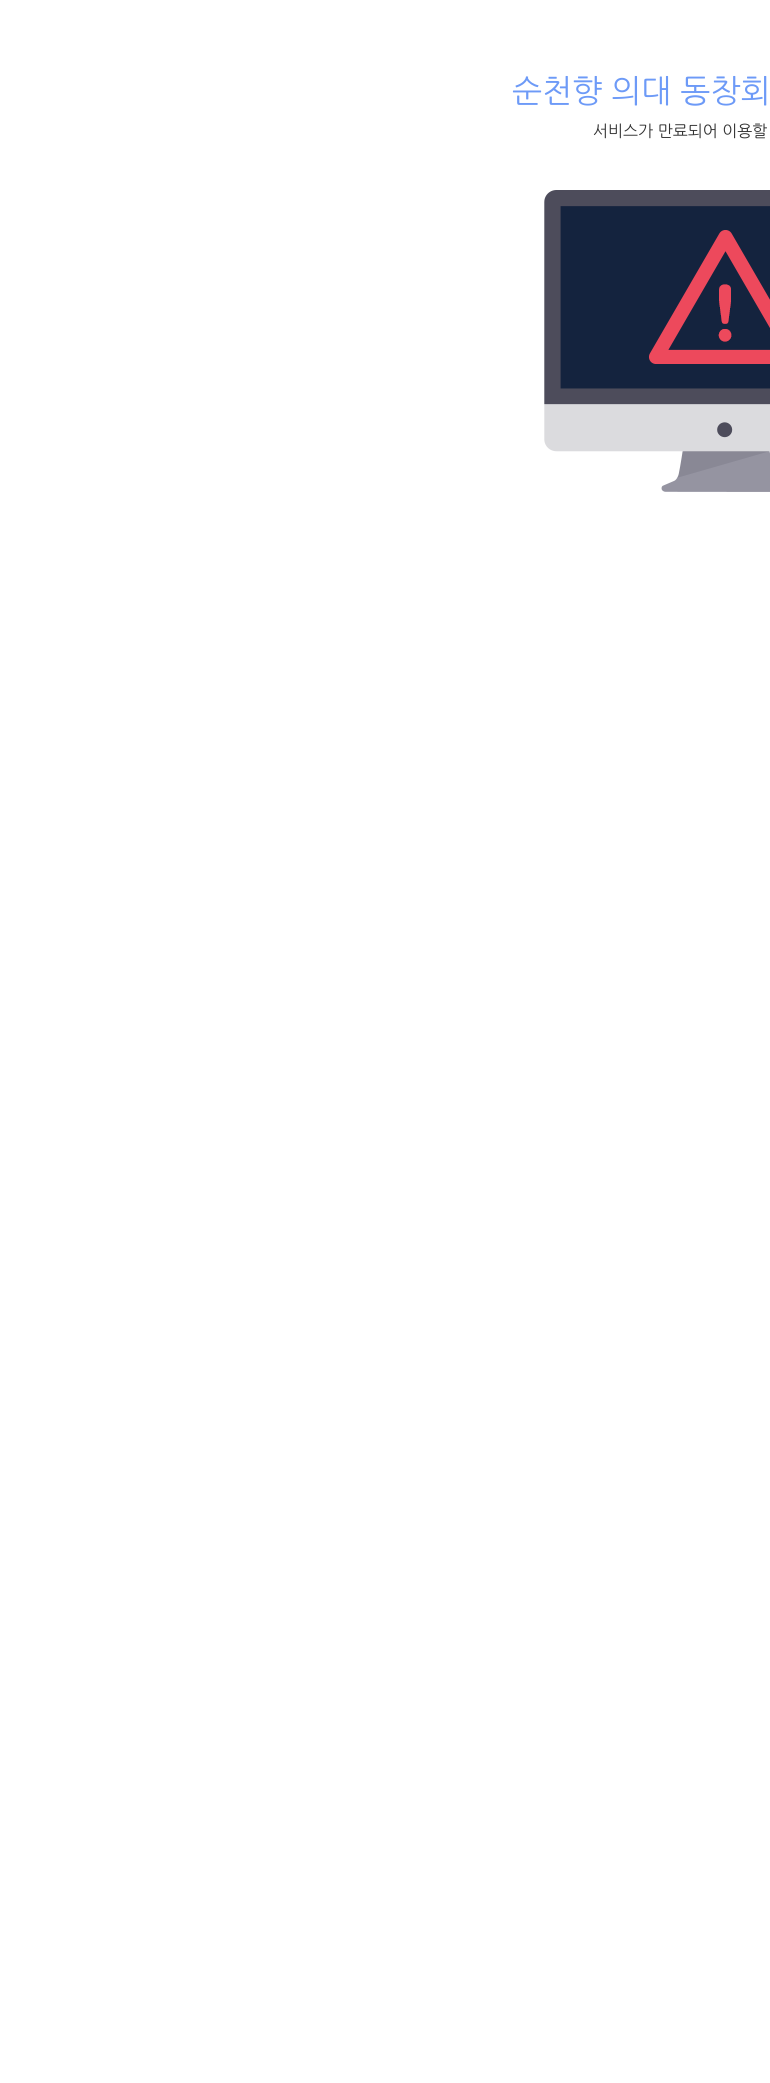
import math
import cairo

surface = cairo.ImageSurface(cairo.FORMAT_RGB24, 770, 2083)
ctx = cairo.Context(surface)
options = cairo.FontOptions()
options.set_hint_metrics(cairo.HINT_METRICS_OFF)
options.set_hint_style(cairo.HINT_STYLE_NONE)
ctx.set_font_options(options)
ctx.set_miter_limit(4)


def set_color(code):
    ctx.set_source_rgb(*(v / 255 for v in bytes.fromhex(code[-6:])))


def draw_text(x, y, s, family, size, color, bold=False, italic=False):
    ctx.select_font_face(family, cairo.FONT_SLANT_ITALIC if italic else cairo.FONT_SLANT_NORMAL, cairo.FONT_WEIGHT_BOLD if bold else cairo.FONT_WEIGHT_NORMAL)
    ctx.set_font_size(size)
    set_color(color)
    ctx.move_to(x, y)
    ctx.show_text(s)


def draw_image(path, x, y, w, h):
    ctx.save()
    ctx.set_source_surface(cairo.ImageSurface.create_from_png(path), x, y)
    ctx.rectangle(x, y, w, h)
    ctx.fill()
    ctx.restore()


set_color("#ffffff")
ctx.paint()
draw_text(512, 101, "순천향 의대 동창회", "NanumGothic", 32, "#6d9af7")
draw_text(593, 136, "서비스가 만료되어 이용할", "NanumGothic", 16, "#333333")
draw_image("assets/img1.png", 544, 190, 226, 302)
surface.write_to_png("output.png")
